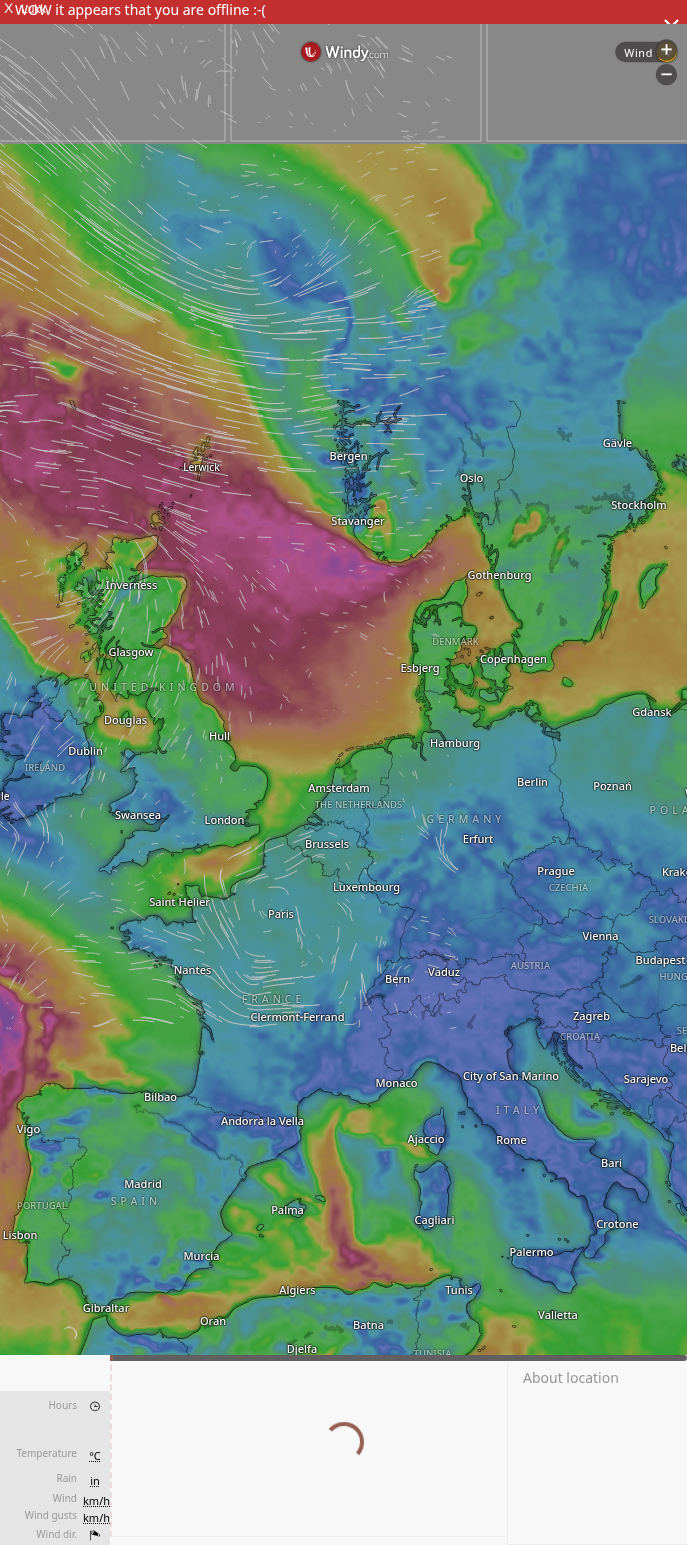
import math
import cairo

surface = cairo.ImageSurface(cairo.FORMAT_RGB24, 687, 1545)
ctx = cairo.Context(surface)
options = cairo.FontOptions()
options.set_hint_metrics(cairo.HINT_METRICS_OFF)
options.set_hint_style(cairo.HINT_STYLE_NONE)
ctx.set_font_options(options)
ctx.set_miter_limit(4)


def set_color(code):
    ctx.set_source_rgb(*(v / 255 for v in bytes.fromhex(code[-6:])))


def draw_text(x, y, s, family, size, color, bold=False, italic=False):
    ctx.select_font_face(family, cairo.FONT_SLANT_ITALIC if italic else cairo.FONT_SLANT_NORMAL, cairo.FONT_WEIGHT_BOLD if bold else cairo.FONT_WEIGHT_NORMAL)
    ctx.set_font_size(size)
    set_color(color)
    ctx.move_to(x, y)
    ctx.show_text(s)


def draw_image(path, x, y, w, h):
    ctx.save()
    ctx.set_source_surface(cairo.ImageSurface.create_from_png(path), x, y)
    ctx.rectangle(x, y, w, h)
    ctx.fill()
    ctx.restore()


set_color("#ffffff")
ctx.paint()
draw_image("assets/img1.png", 0, 0, 687, 1545)
draw_text(4, 13, "X", "Liberation Sans", 14, "#ffffff")
draw_text(21, 13, "Lukk", "Liberation Sans", 12, "#ffffff")
draw_image("assets/img2.png", 63, 1326, 302, 137)
surface.write_to_png("output.png")
